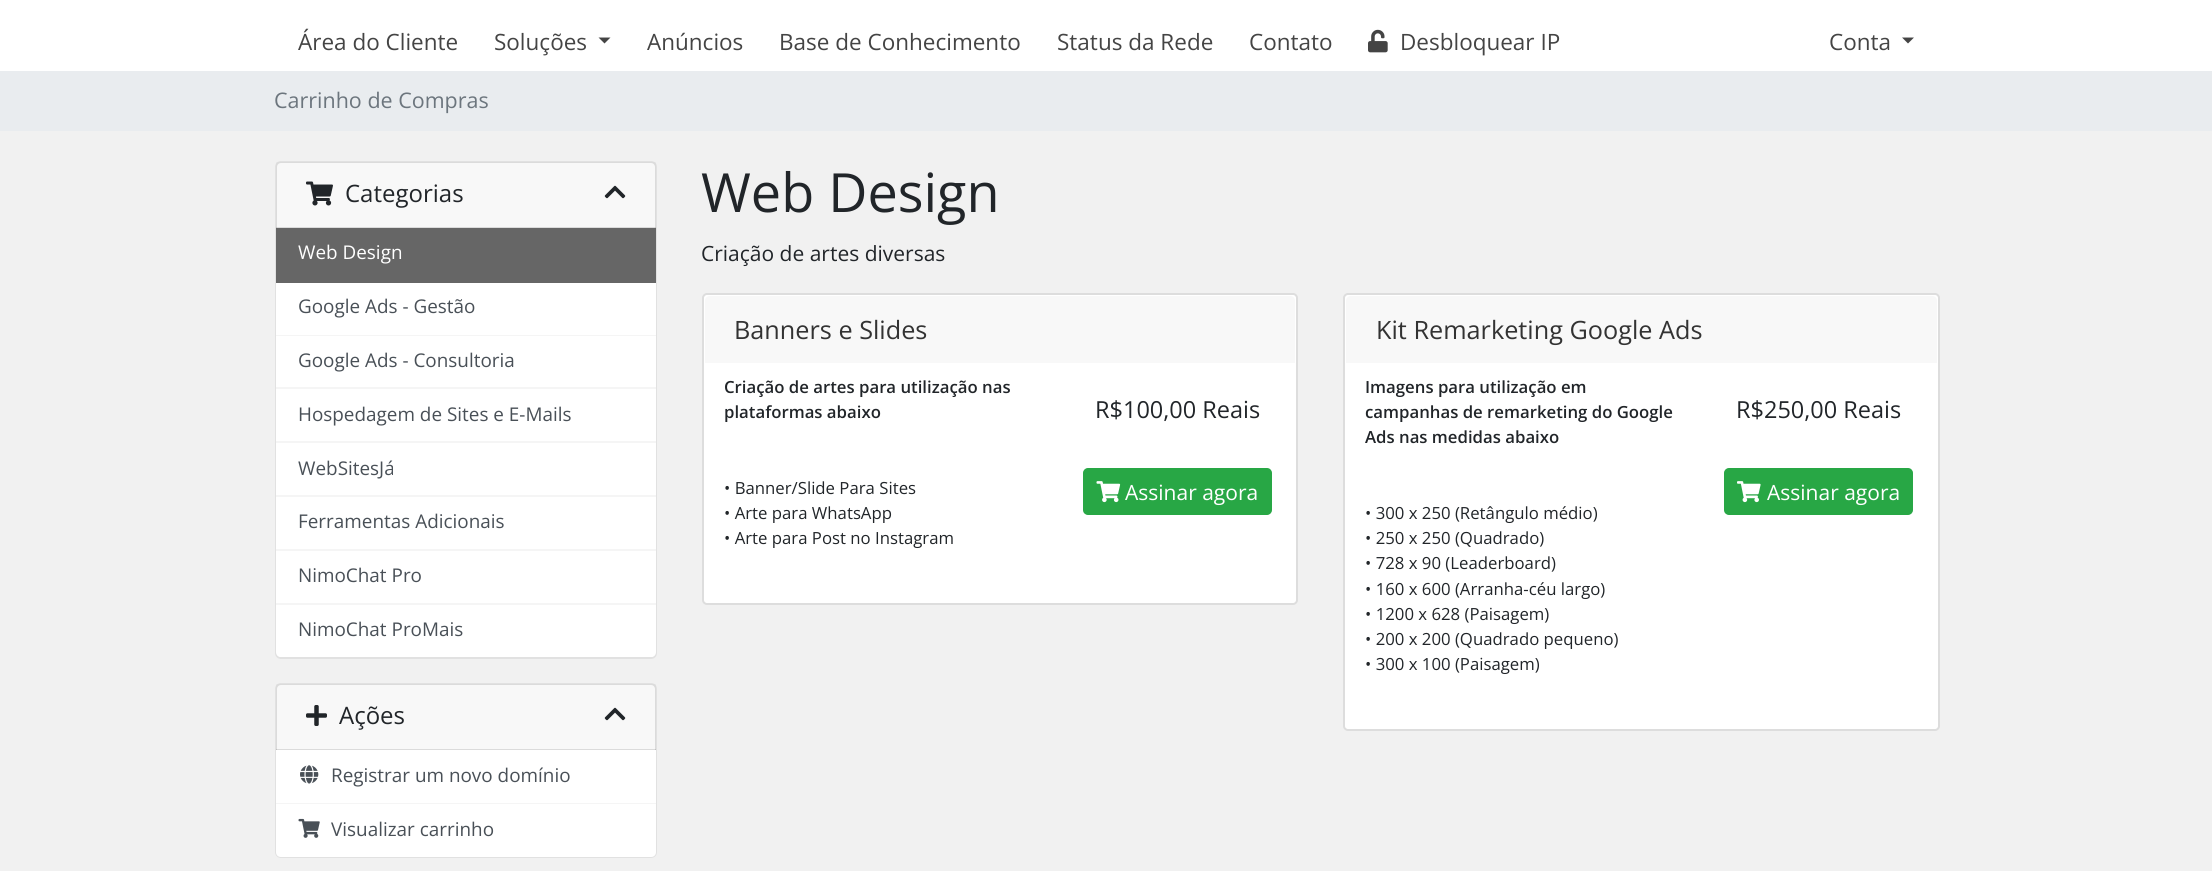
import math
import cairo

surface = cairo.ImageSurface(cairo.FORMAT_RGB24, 2212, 871)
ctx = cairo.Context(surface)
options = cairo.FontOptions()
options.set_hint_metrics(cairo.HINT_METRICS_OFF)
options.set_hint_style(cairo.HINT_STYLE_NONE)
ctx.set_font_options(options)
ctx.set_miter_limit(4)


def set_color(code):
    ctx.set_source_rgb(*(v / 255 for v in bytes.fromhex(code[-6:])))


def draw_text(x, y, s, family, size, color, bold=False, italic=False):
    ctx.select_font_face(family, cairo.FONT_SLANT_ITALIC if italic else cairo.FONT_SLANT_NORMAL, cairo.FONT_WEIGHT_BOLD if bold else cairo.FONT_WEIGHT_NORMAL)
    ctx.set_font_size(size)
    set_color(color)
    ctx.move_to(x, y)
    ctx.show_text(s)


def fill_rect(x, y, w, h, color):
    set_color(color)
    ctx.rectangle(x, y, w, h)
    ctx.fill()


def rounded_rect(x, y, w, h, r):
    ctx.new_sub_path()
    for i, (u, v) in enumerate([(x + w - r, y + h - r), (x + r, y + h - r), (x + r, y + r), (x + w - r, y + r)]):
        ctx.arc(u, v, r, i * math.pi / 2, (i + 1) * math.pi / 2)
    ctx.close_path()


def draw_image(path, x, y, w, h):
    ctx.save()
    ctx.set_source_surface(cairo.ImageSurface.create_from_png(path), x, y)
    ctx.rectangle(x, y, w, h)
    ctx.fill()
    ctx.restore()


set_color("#f1f1f1")
ctx.paint()
fill_rect(0, 0, 2212, 71, "#ffffff")
draw_text(298, 50, "Área do Cliente", "Open Sans", 22.5, "#444444")
draw_text(494, 50, "Soluções", "Open Sans", 22.5, "#444444")
ctx.new_path()
ctx.move_to(598.5, 37.5)
ctx.line_to(610.5, 37.5)
ctx.line_to(604.5, 43.5)
ctx.close_path()
ctx.fill()
draw_text(647, 50, "Anúncios", "Open Sans", 22.5, "#444444")
draw_text(779, 50, "Base de Conhecimento", "Open Sans", 22.5, "#444444")
draw_text(1057, 50, "Status da Rede", "Open Sans", 22.5, "#444444")
draw_text(1249, 50, "Contato", "Open Sans", 22.5, "#444444")
draw_image("assets/img1.png", 1368, 29, 20, 24)
draw_text(1400, 50, "Desbloquear IP", "Open Sans", 22.5, "#444444")
draw_text(1829, 50, "Conta", "Open Sans", 22.5, "#444444")
ctx.new_path()
ctx.move_to(1902, 37.5)
ctx.line_to(1914, 37.5)
ctx.line_to(1908, 43.5)
ctx.close_path()
ctx.fill()
fill_rect(0, 71, 2212, 60, "#e9ecef")
draw_text(274, 108, "Carrinho de Compras", "Open Sans", 21.5, "#6c757d")
set_color("#ffffff")
rounded_rect(275, 161, 382, 498, 6)
ctx.fill()
rounded_rect(276, 162, 380, 496, 5)
ctx.set_source_rgba(0, 0, 0, 0.12)
ctx.stroke()
ctx.set_source_rgba(0, 0, 0, 0.03)
ctx.rectangle(276, 162, 380, 66)
ctx.fill()
ctx.set_source_rgba(0, 0, 0, 0.12)
ctx.rectangle(276, 227, 380, 1)
ctx.fill()
draw_image("assets/img2.png", 306, 181, 27, 25)
draw_text(345, 202, "Categorias", "Open Sans", 24, "#212529")
draw_image("assets/img3.png", 604, 185, 22, 14)
fill_rect(276, 228, 380, 55, "#666666")
draw_text(298, 259, "Web Design", "Open Sans", 18.9, "#ffffff")
fill_rect(276, 283, 380, 52, "#ffffff")
fill_rect(276, 335, 380, 1, "#f5f5f5")
draw_text(298, 313, "Google Ads - Gestão", "Open Sans", 18.9, "#495057")
fill_rect(276, 336, 380, 51, "#ffffff")
fill_rect(276, 387, 380, 2, "#f5f5f5")
draw_text(298, 367, "Google Ads - Consultoria", "Open Sans", 18.9, "#495057")
fill_rect(276, 389, 380, 52, "#ffffff")
fill_rect(276, 441, 380, 2, "#f5f5f5")
draw_text(298, 421, "Hospedagem de Sites e E-Mails", "Open Sans", 18.9, "#495057")
fill_rect(276, 443, 380, 52, "#ffffff")
fill_rect(276, 495, 380, 2, "#f5f5f5")
draw_text(298, 475, "WebSitesJá", "Open Sans", 18.9, "#495057")
fill_rect(276, 497, 380, 52, "#ffffff")
fill_rect(276, 549, 380, 2, "#f5f5f5")
draw_text(298, 528, "Ferramentas Adicionais", "Open Sans", 18.9, "#495057")
fill_rect(276, 551, 380, 52, "#ffffff")
fill_rect(276, 603, 380, 2, "#f5f5f5")
draw_text(298, 582, "NimoChat Pro", "Open Sans", 18.9, "#495057")
set_color("#ffffff")
ctx.new_path()
ctx.move_to(276, 605)
ctx.line_to(656, 605)
ctx.line_to(656, 652)
ctx.curve_to(656, 655, 654, 657, 651, 657)
ctx.line_to(281, 657)
ctx.curve_to(278, 657, 276, 655, 276, 652)
ctx.close_path()
ctx.fill()
draw_text(298, 636, "NimoChat ProMais", "Open Sans", 18.9, "#495057")
set_color("#ffffff")
rounded_rect(275, 683, 382, 175, 6)
ctx.fill()
rounded_rect(276, 684, 380, 173, 5)
ctx.set_source_rgba(0, 0, 0, 0.12)
ctx.stroke()
ctx.set_source_rgba(0, 0, 0, 0.03)
ctx.rectangle(276, 684, 380, 66)
ctx.fill()
ctx.set_source_rgba(0, 0, 0, 0.12)
ctx.rectangle(276, 749, 380, 1)
ctx.fill()
draw_image("assets/img4.png", 306, 705, 21, 21)
draw_text(339, 724, "Ações", "Open Sans", 24, "#212529")
draw_image("assets/img3.png", 604, 707, 22, 14)
fill_rect(276, 750, 380, 53, "#ffffff")
fill_rect(276, 803, 380, 1, "#f5f5f5")
draw_image("assets/img5.png", 300, 765, 19, 19)
draw_text(331, 782, "Registrar um novo domínio", "Open Sans", 18.9, "#495057")
set_color("#ffffff")
ctx.new_path()
ctx.move_to(276, 804)
ctx.line_to(656, 804)
ctx.line_to(656, 852)
ctx.curve_to(656, 855, 654, 857, 651, 857)
ctx.line_to(281, 857)
ctx.curve_to(278, 857, 276, 855, 276, 852)
ctx.close_path()
ctx.fill()
draw_image("assets/img6.png", 298, 818, 22, 20)
draw_text(331, 836, "Visualizar carrinho", "Open Sans", 18.9, "#495057")
draw_text(701, 212, "Web Design", "Open Sans", 54, "#212529")
draw_text(701, 261, "Criação de artes diversas", "Open Sans", 21, "#212529")
set_color("#ffffff")
rounded_rect(703, 294, 594, 310, 4)
ctx.fill_preserve()
set_color("#dddddd")
ctx.stroke()
set_color("#f8f8f8")
ctx.new_path()
ctx.move_to(710, 296)
ctx.line_to(1290, 296)
ctx.curve_to(1293, 296, 1295, 298, 1295, 301)
ctx.line_to(1295, 363)
ctx.line_to(705, 363)
ctx.line_to(705, 301)
ctx.curve_to(705, 298, 707, 296, 710, 296)
ctx.close_path()
ctx.fill()
draw_text(734, 339, "Banners e Slides", "Open Sans", 25.25, "#333333")
draw_text(724, 393, "Criação de artes para utilização nas", "Open Sans SemiBold", 16.75, "#212529")
draw_text(724, 418, "plataformas abaixo", "Open Sans SemiBold", 16.75, "#212529")
draw_text(724, 494, "• Banner/Slide Para Sites", "Open Sans", 16.75, "#212529")
draw_text(724, 519, "• Arte para WhatsApp", "Open Sans", 16.75, "#212529")
draw_text(724, 544, "• Arte para Post no Instagram", "Open Sans", 16.75, "#212529")
draw_text(1095, 418, "R$100,00 Reais", "Open Sans", 23.5, "#212529")
set_color("#28a745")
rounded_rect(1084, 469, 187, 45, 4)
ctx.fill_preserve()
ctx.stroke()
draw_image("assets/img7.png", 1096, 481, 25, 22)
draw_text(1125, 500, "Assinar agora", "Open Sans", 21, "#ffffff")
rounded_rect(1344, 294, 595, 436, 4)
ctx.fill_preserve()
set_color("#dddddd")
ctx.stroke()
set_color("#f8f8f8")
ctx.new_path()
ctx.move_to(1351, 296)
ctx.line_to(1932, 296)
ctx.curve_to(1935, 296, 1937, 298, 1937, 301)
ctx.line_to(1937, 363)
ctx.line_to(1346, 363)
ctx.line_to(1346, 301)
ctx.curve_to(1346, 298, 1348, 296, 1351, 296)
ctx.close_path()
ctx.fill()
draw_text(1376, 339, "Kit Remarketing Google Ads", "Open Sans", 25.25, "#333333")
draw_text(1365, 393, "Imagens para utilização em", "Open Sans SemiBold", 16.75, "#212529")
draw_text(1365, 418, "campanhas de remarketing do Google", "Open Sans SemiBold", 16.75, "#212529")
draw_text(1365, 443, "Ads nas medidas abaixo", "Open Sans SemiBold", 16.75, "#212529")
draw_text(1365, 519, "• 300 x 250 (Retângulo médio)", "Open Sans", 16.75, "#212529")
draw_text(1365, 544, "• 250 x 250 (Quadrado)", "Open Sans", 16.75, "#212529")
draw_text(1365, 569, "• 728 x 90 (Leaderboard)", "Open Sans", 16.75, "#212529")
draw_text(1365, 595, "• 160 x 600 (Arranha-céu largo)", "Open Sans", 16.75, "#212529")
draw_text(1365, 620, "• 1200 x 628 (Paisagem)", "Open Sans", 16.75, "#212529")
draw_text(1365, 645, "• 200 x 200 (Quadrado pequeno)", "Open Sans", 16.75, "#212529")
draw_text(1365, 670, "• 300 x 100 (Paisagem)", "Open Sans", 16.75, "#212529")
draw_text(1736, 418, "R$250,00 Reais", "Open Sans", 23.5, "#212529")
set_color("#28a745")
rounded_rect(1725, 469, 187, 45, 4)
ctx.fill_preserve()
ctx.stroke()
draw_image("assets/img8.png", 1737, 481, 24, 22)
draw_text(1767, 500, "Assinar agora", "Open Sans", 21, "#ffffff")
surface.write_to_png("output.png")
